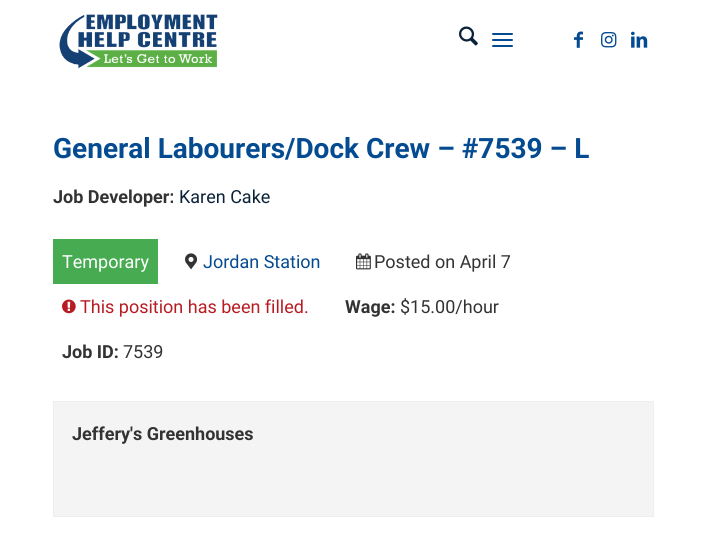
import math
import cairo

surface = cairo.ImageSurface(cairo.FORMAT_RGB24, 707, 538)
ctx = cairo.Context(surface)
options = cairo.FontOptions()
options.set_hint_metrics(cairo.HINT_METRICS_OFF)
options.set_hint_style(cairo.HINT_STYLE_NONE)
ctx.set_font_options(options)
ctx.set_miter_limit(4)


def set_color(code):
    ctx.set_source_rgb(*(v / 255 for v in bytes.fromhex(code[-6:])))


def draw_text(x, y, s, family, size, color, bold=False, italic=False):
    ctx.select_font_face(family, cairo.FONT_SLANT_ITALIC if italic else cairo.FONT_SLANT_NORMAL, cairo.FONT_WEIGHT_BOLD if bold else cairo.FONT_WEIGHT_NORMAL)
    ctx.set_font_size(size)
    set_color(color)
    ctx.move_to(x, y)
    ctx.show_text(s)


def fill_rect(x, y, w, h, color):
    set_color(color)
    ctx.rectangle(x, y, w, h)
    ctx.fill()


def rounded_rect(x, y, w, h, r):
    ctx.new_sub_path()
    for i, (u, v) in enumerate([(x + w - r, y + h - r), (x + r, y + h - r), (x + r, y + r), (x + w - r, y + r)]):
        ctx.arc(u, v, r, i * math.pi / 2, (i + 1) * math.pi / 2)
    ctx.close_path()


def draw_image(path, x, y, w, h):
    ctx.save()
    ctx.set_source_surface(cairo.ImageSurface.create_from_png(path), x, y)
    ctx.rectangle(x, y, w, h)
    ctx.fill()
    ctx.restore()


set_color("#ffffff")
ctx.paint()
draw_image("assets/img1.png", 59, 14, 159, 55)
draw_image("assets/img2.png", 459, 26, 19, 20)
set_color("#054b91")
rounded_rect(492, 39, 21, 2, 1)
ctx.fill()
rounded_rect(492, 33, 21, 2, 1)
ctx.fill()
rounded_rect(492, 45, 21, 2, 1)
ctx.fill()
draw_image("assets/img3.png", 574, 31, 9, 17)
draw_image("assets/img4.png", 601, 32, 16, 16)
draw_image("assets/img5.png", 631, 31, 17, 17)
draw_text(53, 158, "General Labourers/Dock Crew – #7539 – L", "Roboto", 28, "#054b91", bold=True)
draw_text(53, 203, "Job Developer:", "Roboto", 18, "#333333", bold=True)
draw_text(179, 203, "Karen Cake", "Roboto", 18, "#0a2239")
fill_rect(53, 239, 105, 45, "#46ab51")
draw_text(62, 268, "Temporary", "Roboto", 18, "#ffffff")
draw_image("assets/img6.png", 185, 253, 13, 17)
draw_text(203, 268, "Jordan Station", "Roboto", 18, "#054b91")
draw_image("assets/img7.png", 356, 253, 15, 17)
draw_text(374, 268, "Posted on April 7", "Roboto", 18, "#333333")
draw_image("assets/img8.png", 62, 299, 14, 15)
draw_text(80, 313, "This position has been filled.", "Roboto", 18, "#b81c23")
draw_text(345, 313, "Wage:", "Roboto", 18, "#333333", bold=True)
draw_text(400, 313, "$15.00/hour", "Roboto", 18, "#333333")
draw_text(62, 358, "Job ID:", "Roboto", 18, "#333333", bold=True)
draw_text(123, 358, "7539", "Roboto", 18, "#333333")
set_color("#f4f4f4")
ctx.rectangle(53.5, 401.5, 600, 115)
ctx.fill_preserve()
set_color("#eeeeee")
ctx.set_line_width(1)
ctx.stroke()
draw_text(72, 440, "Jeffery's Greenhouses", "Roboto", 18, "#333333", bold=True)
surface.write_to_png("output.png")
